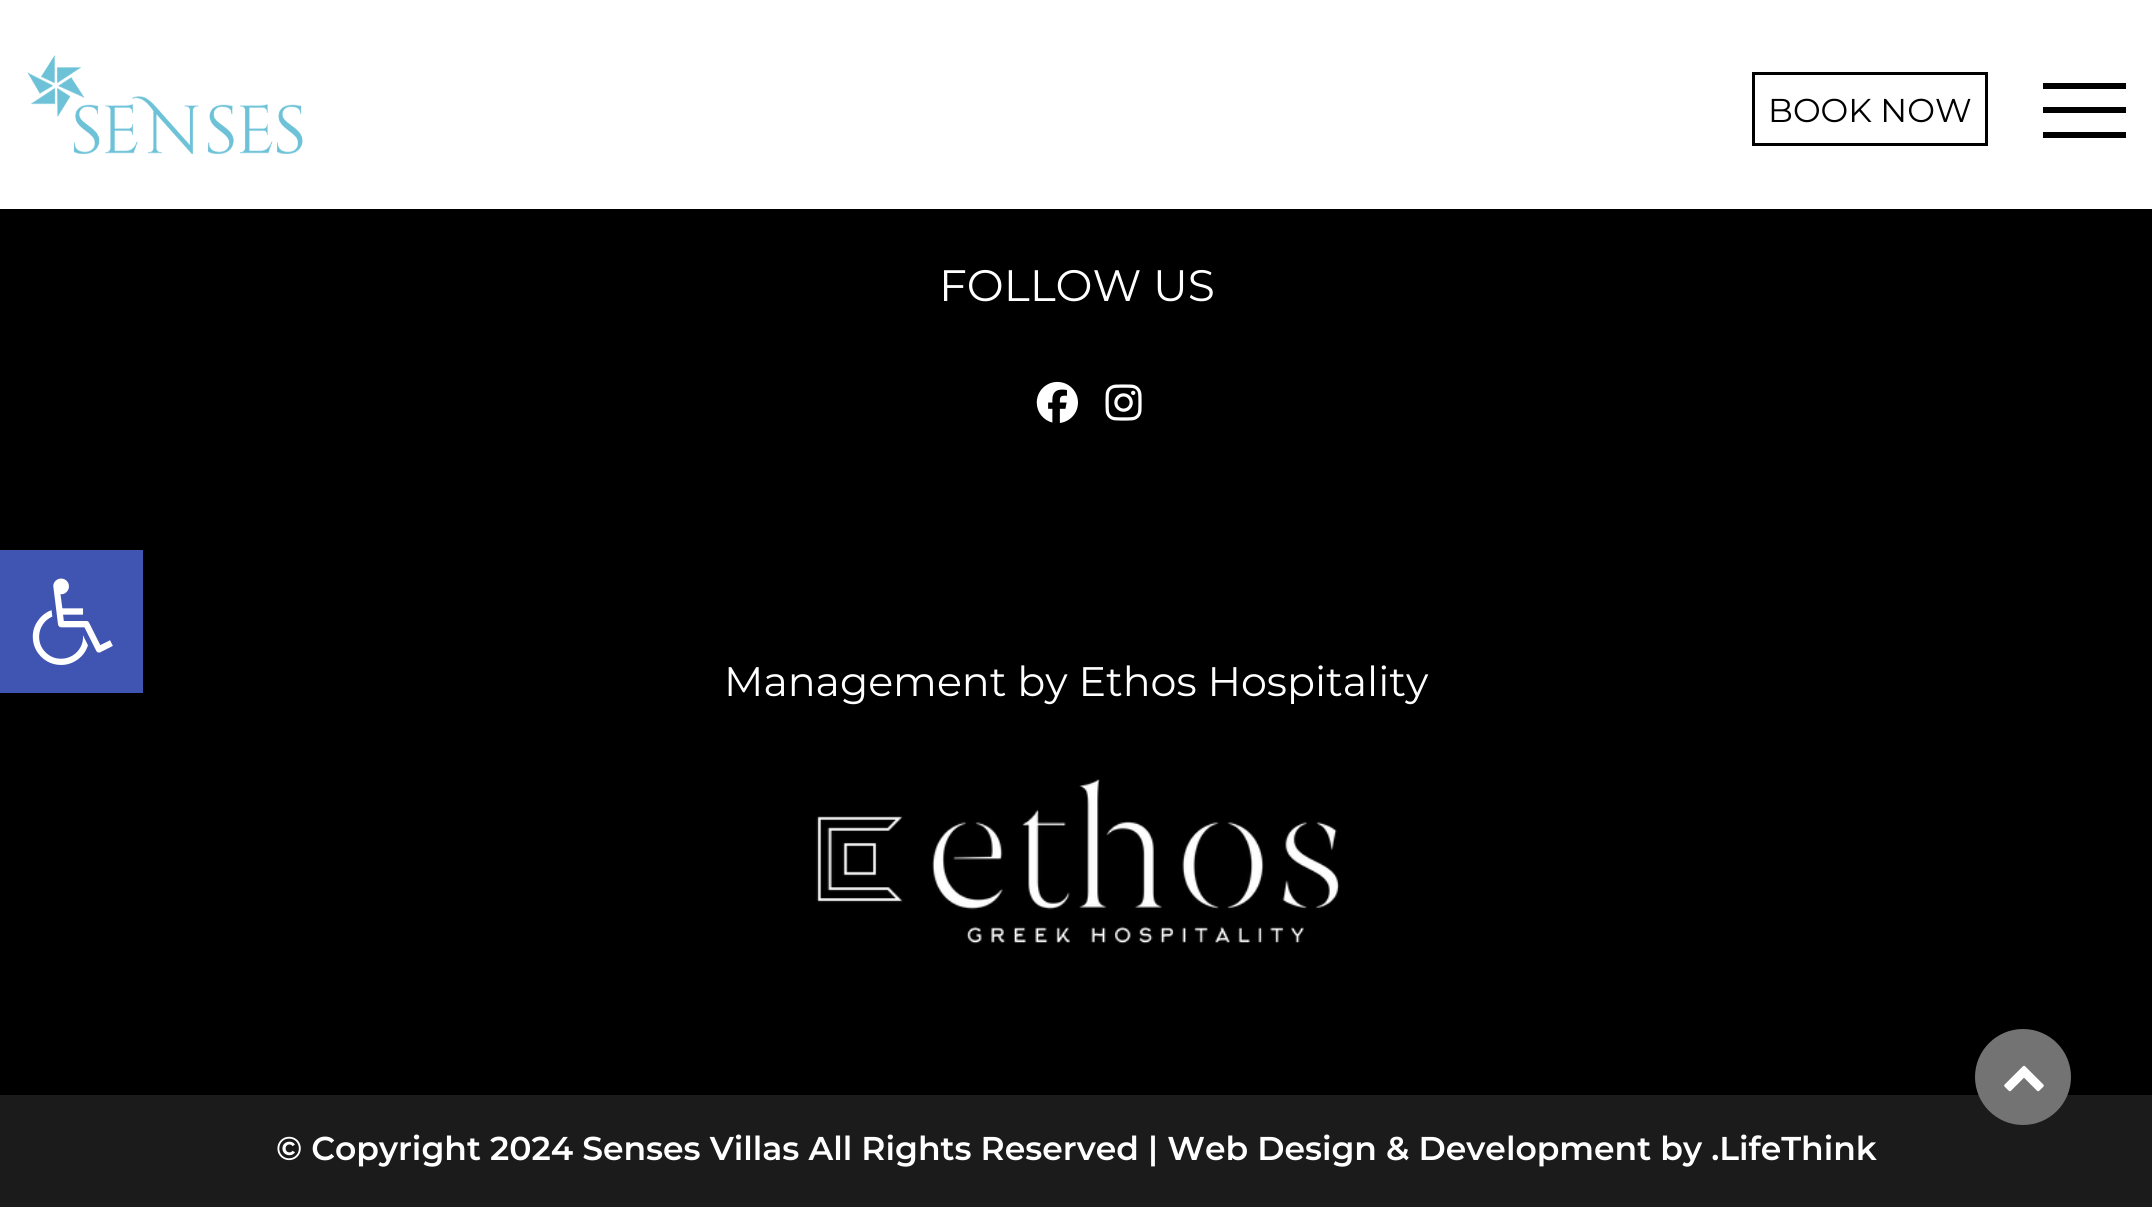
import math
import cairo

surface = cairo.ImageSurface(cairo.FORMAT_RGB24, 2152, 1207)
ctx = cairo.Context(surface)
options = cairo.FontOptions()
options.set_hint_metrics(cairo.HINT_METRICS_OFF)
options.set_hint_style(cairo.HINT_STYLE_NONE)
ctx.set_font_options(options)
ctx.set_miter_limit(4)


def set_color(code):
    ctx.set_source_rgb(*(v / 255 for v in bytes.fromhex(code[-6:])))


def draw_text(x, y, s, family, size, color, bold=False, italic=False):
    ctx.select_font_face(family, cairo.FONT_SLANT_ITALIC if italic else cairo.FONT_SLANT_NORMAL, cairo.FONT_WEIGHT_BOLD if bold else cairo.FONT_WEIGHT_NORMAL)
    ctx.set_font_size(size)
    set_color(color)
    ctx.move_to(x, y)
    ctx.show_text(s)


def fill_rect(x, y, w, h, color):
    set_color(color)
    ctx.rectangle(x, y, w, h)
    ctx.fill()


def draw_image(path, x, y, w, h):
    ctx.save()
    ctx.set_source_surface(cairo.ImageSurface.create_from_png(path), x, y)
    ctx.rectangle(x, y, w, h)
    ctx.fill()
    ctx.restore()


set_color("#000000")
ctx.paint()
fill_rect(0, 550, 143, 143, "#4054b2")
draw_image("assets/img1.png", 32, 578, 81, 87)
fill_rect(0, 0, 2152, 209, "#ffffff")
draw_image("assets/img2.png", 27, 55, 276, 99)
ctx.rectangle(1753.5, 73.5, 233, 71)
set_color("#000000")
ctx.set_line_width(3)
ctx.stroke()
draw_text(1768, 122, "BOOK NOW", "Montserrat", 33, "#000000")
fill_rect(2043, 83, 83, 6, "#000000")
fill_rect(2043, 107, 83, 6, "#000000")
fill_rect(2043, 132, 83, 6, "#000000")
draw_text(939, 301, "FOLLOW US", "Montserrat", 44, "#ffffff")
draw_image("assets/img3.png", 1036, 381, 42, 42)
draw_image("assets/img4.png", 1105, 384, 37, 37)
draw_text(724, 696, "Management by Ethos Hospitality", "Montserrat", 41.25, "#ffffff")
draw_image("assets/img5.png", 816, 779, 524, 165)
fill_rect(0, 1095, 2152, 112, "#1b1b1b")
draw_text(276, 1160, "© Copyright 2024 Senses Villas All Rights Reserved | Web Design & Development by .LifeThink", "Montserrat SemiBold", 33, "#ffffff")
set_color("#737373")
ctx.new_path()
ctx.arc(2023, 1077, 48, 0, 2 * math.pi)
ctx.fill()
draw_image("assets/img6.png", 2004, 1065, 40, 27)
surface.write_to_png("output.png")
